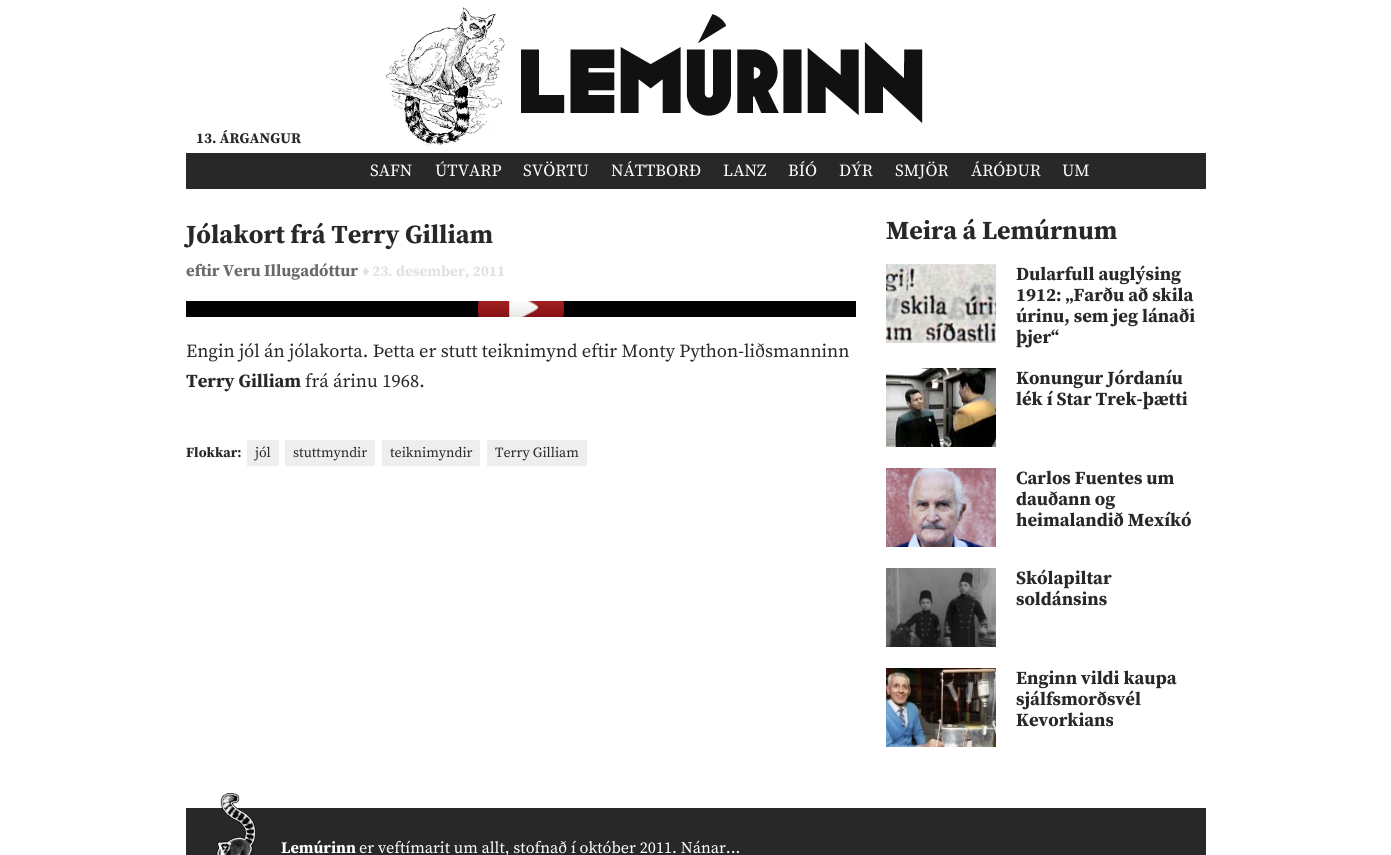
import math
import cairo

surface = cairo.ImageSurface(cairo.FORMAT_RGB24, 1391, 855)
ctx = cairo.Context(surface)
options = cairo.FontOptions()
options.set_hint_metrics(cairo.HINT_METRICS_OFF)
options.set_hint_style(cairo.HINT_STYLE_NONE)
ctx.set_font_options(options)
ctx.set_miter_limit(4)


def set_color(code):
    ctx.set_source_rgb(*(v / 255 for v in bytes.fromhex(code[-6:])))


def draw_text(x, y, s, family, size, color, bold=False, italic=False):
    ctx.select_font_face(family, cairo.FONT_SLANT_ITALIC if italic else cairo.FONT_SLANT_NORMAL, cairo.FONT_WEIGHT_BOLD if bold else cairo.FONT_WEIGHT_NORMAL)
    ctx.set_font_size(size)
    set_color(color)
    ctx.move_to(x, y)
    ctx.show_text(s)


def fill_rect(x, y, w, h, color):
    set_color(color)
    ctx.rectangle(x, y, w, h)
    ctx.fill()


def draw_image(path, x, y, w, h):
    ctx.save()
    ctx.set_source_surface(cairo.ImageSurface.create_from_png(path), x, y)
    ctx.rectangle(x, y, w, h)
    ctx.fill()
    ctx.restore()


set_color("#ffffff")
ctx.paint()
draw_text(196, 143, "13. ÁRGANGUR", "Source Serif Pro", 14.75, "#282828", bold=True)
draw_image("assets/img1.png", 384, 7, 539, 139)
fill_rect(186, 153, 1020, 36, "#282828")
draw_text(370, 176, "SAFN", "Source Serif Pro", 17, "#ffffff")
draw_text(435, 176, "ÚTVARP", "Source Serif Pro", 17, "#ffffff")
draw_text(523, 176, "SVÖRTU", "Source Serif Pro", 17, "#ffffff")
draw_text(611, 176, "NÁTTBORÐ", "Source Serif Pro", 17, "#ffffff")
draw_text(723, 176, "LANZ", "Source Serif Pro", 17, "#ffffff")
draw_text(788, 176, "BÍÓ", "Source Serif Pro", 17, "#ffffff")
draw_text(839, 176, "DÝR", "Source Serif Pro", 17, "#ffffff")
draw_text(895, 176, "SMJÖR", "Source Serif Pro", 17, "#ffffff")
draw_text(971, 176, "ÁRÓÐUR", "Source Serif Pro", 17, "#ffffff")
draw_text(1062, 176, "UM", "Source Serif Pro", 17, "#ffffff")
draw_text(186, 243, "Jólakort frá Terry Gilliam", "Source Serif Pro", 26, "#282828", bold=True)
draw_text(186, 276, "eftir Veru Illugadóttur", "Source Serif Pro", 16.6, "#696969", bold=True)
draw_text(362, 276, "♦", "Liberation Serif", 15, "#e1e1e1", bold=True)
draw_text(372, 276, "23. desember, 2011", "Source Serif Pro", 15, "#e1e1e1", bold=True)
fill_rect(186, 301, 670, 16, "#000000")
draw_image("assets/img2.png", 478, 301, 86, 16)
draw_text(186, 357, "Engin jól án jólakorta. Þetta er stutt teiknimynd eftir Monty Python-liðsmanninn", "Source Serif Pro", 18.5, "#282828")
draw_text(186, 387, "Terry Gilliam", "Source Serif Pro", 18.5, "#282828", bold=True)
draw_text(305, 387, "frá árinu 1968.", "Source Serif Pro", 18.5, "#282828")
draw_text(186, 457, "Flokkar:", "Source Serif Pro", 14, "#282828", bold=True)
fill_rect(247, 440, 32, 26, "#eeeeee")
draw_text(255, 457, "jól", "Source Serif Pro", 14, "#282828")
fill_rect(285, 440, 90, 26, "#eeeeee")
draw_text(293, 457, "stuttmyndir", "Source Serif Pro", 14, "#282828")
fill_rect(382, 440, 98, 26, "#eeeeee")
draw_text(390, 457, "teiknimyndir", "Source Serif Pro", 14, "#282828")
fill_rect(487, 440, 100, 26, "#eeeeee")
draw_text(495, 457, "Terry Gilliam", "Source Serif Pro", 14, "#282828")
draw_text(886, 239, "Meira á Lemúrnum", "Source Serif Pro", 26, "#282828", bold=True)
draw_image("assets/img3.png", 886, 264, 110, 79)
draw_text(1016, 280, "Dularfull auglýsing", "Source Serif Pro", 18.5, "#282828", bold=True)
draw_text(1016, 301, "1912: „Farðu að skila", "Source Serif Pro", 18.5, "#282828", bold=True)
draw_text(1016, 322, "úrinu, sem jeg lánaði", "Source Serif Pro", 18.5, "#282828", bold=True)
draw_text(1016, 343, "þjer“", "Source Serif Pro", 18.5, "#282828", bold=True)
draw_image("assets/img4.png", 886, 368, 110, 79)
draw_text(1016, 384, "Konungur Jórdaníu", "Source Serif Pro", 18.5, "#282828", bold=True)
draw_text(1016, 405, "lék í Star Trek-þætti", "Source Serif Pro", 18.5, "#282828", bold=True)
draw_image("assets/img5.png", 886, 468, 110, 79)
draw_text(1016, 484, "Carlos Fuentes um", "Source Serif Pro", 18.5, "#282828", bold=True)
draw_text(1016, 505, "dauðann og", "Source Serif Pro", 18.5, "#282828", bold=True)
draw_text(1016, 526, "heimalandið Mexíkó", "Source Serif Pro", 18.5, "#282828", bold=True)
draw_image("assets/img6.png", 886, 568, 110, 79)
draw_text(1016, 584, "Skólapiltar", "Source Serif Pro", 18.5, "#282828", bold=True)
draw_text(1016, 605, "soldánsins", "Source Serif Pro", 18.5, "#282828", bold=True)
draw_image("assets/img7.png", 886, 668, 110, 79)
draw_text(1016, 684, "Enginn vildi kaupa", "Source Serif Pro", 18.5, "#282828", bold=True)
draw_text(1016, 705, "sjálfsmorðsvél", "Source Serif Pro", 18.5, "#282828", bold=True)
draw_text(1016, 726, "Kevorkians", "Source Serif Pro", 18.5, "#282828", bold=True)
fill_rect(186, 808, 1020, 47, "#282828")
draw_image("assets/img8.png", 216, 793, 40, 62)
draw_text(281, 853, "Lemúrinn", "Source Serif Pro", 16.2, "#ffffff", bold=True)
draw_text(359, 853, "er veftímarit um allt, stofnað í október 2011. Nánar...", "Source Serif Pro", 16.2, "#ffffff")
surface.write_to_png("output.png")
